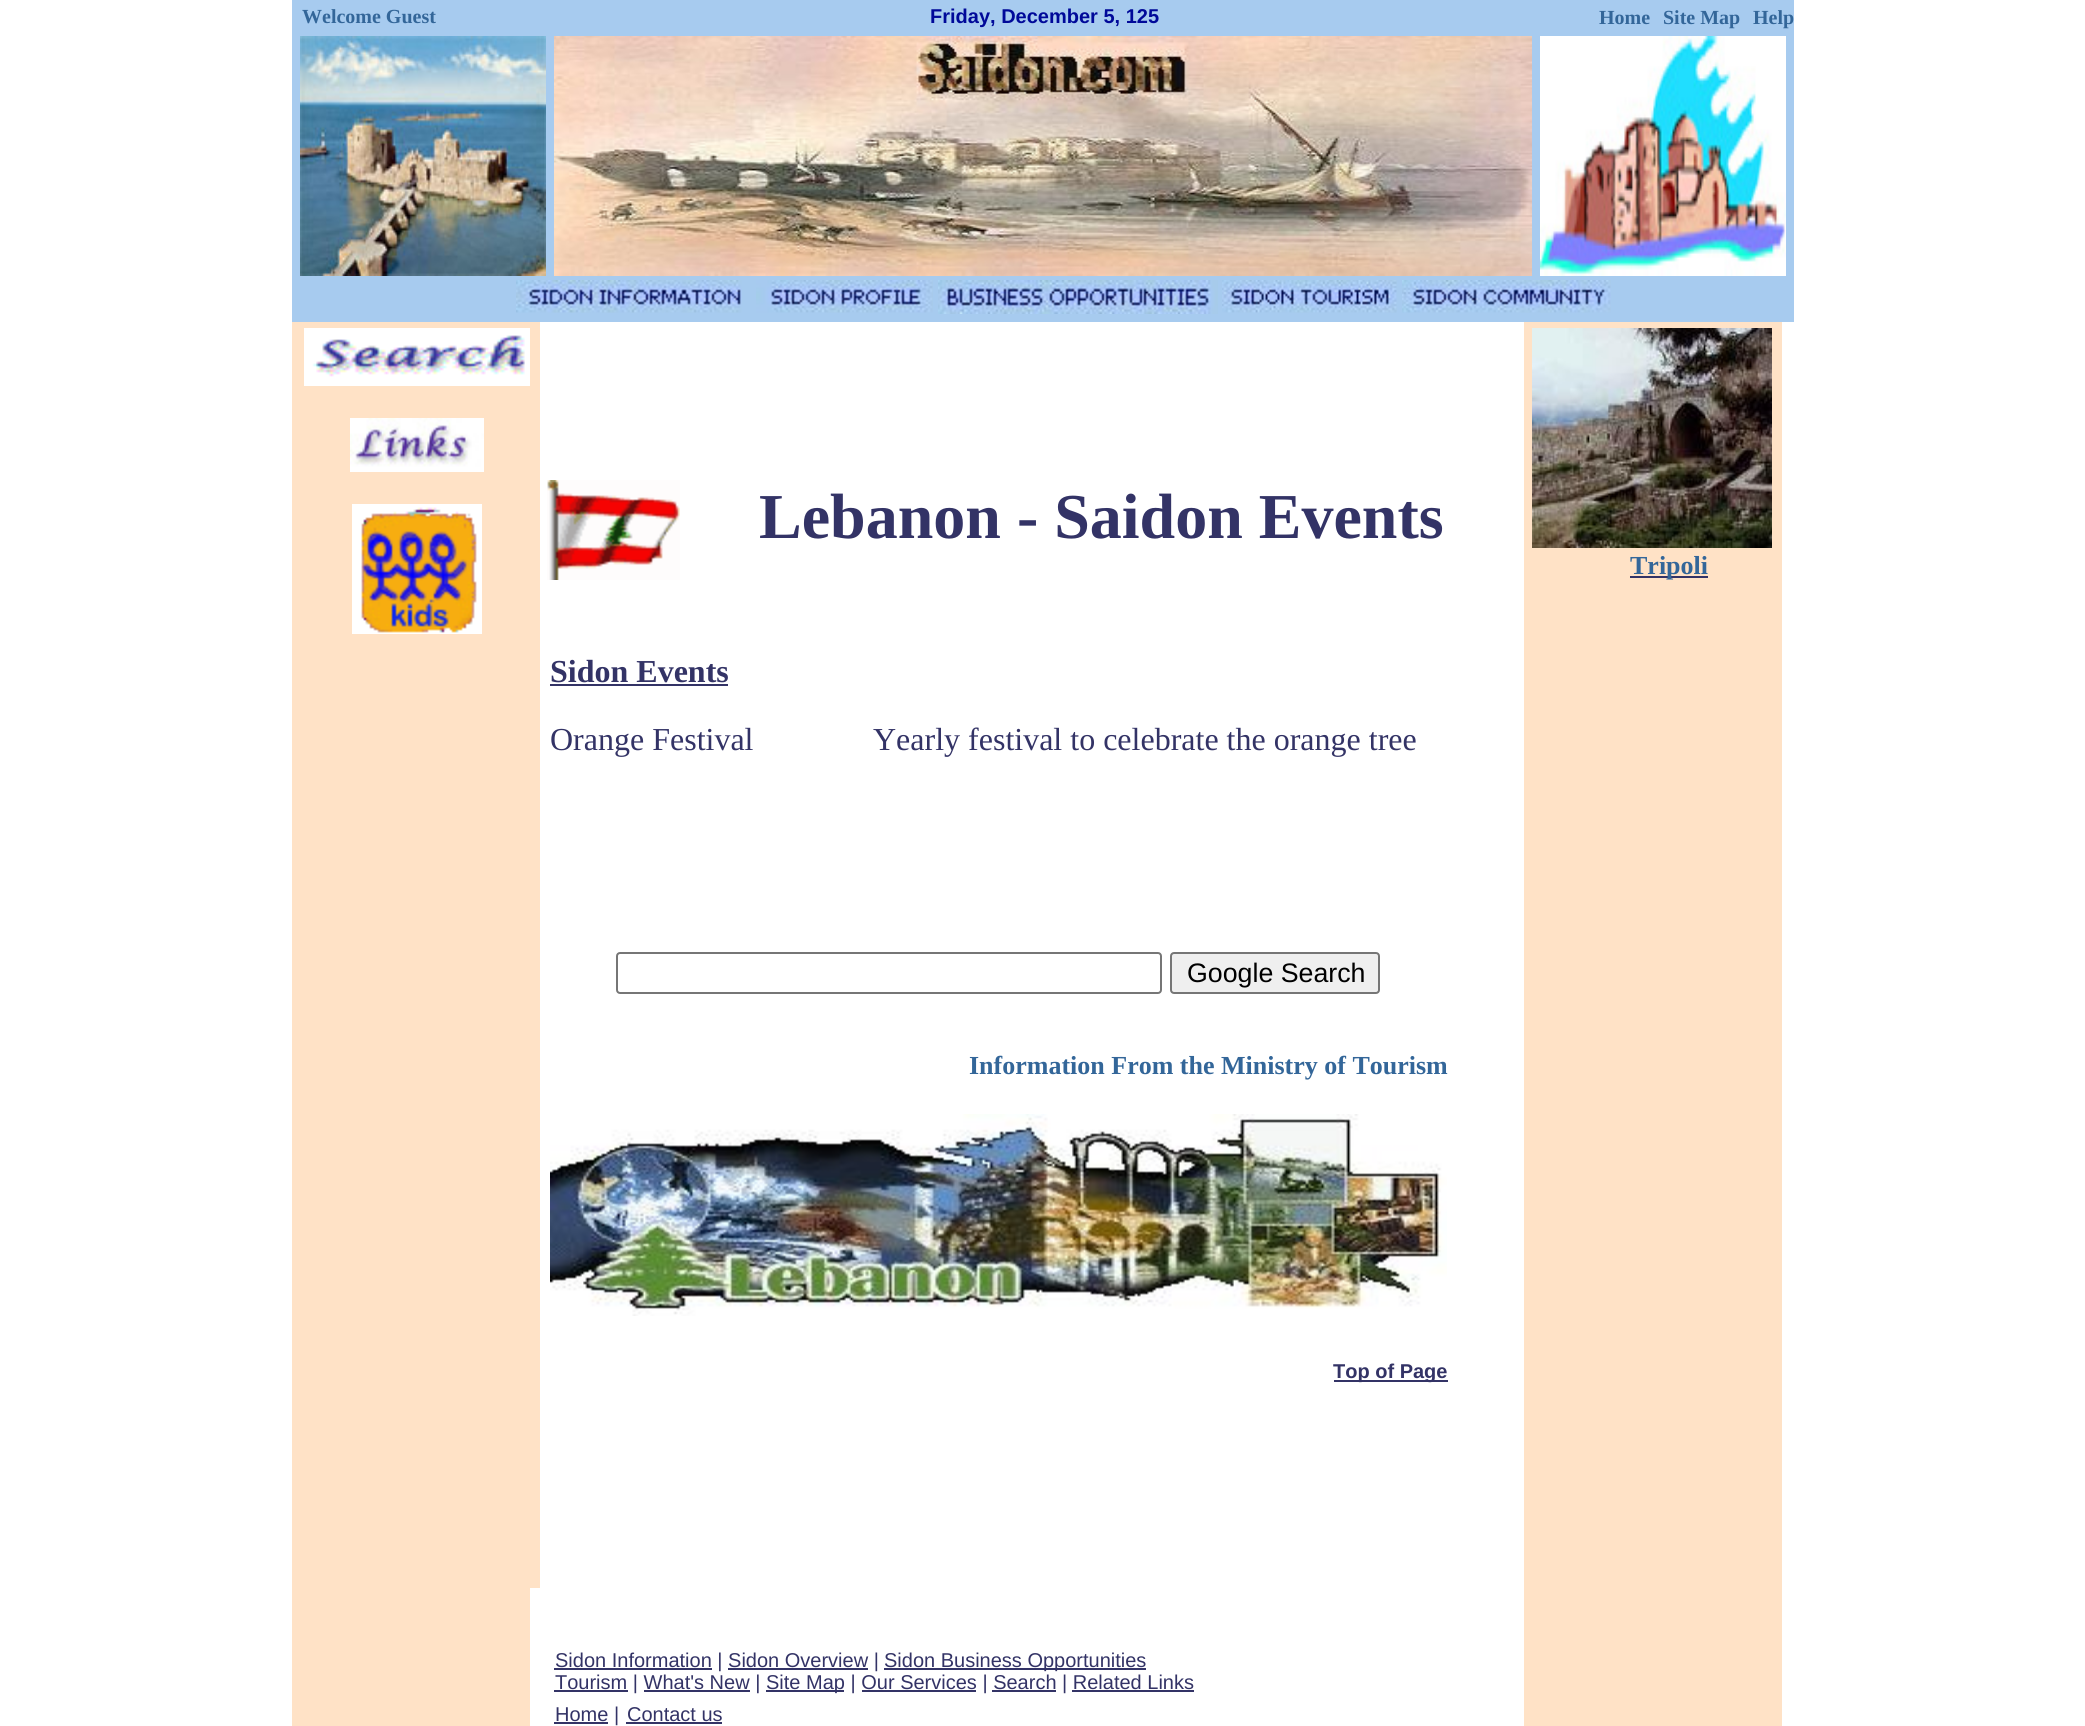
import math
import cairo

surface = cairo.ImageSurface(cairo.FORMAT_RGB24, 2085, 1726)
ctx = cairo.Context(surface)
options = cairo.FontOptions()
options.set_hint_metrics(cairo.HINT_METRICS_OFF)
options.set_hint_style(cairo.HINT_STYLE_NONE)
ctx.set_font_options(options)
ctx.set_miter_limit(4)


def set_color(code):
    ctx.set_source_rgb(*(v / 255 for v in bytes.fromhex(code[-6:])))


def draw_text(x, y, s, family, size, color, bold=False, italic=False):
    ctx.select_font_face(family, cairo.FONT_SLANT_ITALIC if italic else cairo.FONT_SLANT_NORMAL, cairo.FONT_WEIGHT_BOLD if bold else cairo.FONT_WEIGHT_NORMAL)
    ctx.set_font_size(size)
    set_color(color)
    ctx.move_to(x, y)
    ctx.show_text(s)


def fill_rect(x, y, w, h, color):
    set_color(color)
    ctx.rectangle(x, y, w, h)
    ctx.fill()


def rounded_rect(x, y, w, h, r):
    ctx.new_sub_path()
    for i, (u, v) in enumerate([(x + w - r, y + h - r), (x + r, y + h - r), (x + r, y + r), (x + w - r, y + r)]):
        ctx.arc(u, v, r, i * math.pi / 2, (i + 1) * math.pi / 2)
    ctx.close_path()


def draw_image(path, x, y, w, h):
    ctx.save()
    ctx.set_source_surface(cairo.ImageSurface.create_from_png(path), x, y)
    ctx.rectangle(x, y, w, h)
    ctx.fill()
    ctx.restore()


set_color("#ffffff")
ctx.paint()
fill_rect(292, 0, 1502, 322, "#a7cbef")
draw_text(302, 23, "Welcome Guest", "Liberation Serif", 20, "#336699", bold=True)
draw_text(930, 23, "Friday, December 5, 125", "Liberation Sans", 20, "#000999", bold=True)
draw_text(1599, 24, "Home", "Liberation Serif", 20, "#336699", bold=True)
draw_text(1663, 24, "Site Map", "Liberation Serif", 20, "#336699", bold=True)
draw_text(1753, 24, "Help", "Liberation Serif", 20, "#336699", bold=True)
draw_image("assets/img1.png", 300, 36, 246, 240)
draw_image("assets/img2.png", 554, 36, 978, 240)
draw_image("assets/img3.png", 1540, 36, 246, 240)
draw_image("assets/img4.png", 516, 280, 226, 33)
draw_image("assets/img5.png", 756, 280, 177, 33)
draw_image("assets/img6.png", 938, 280, 280, 34)
draw_image("assets/img7.png", 1222, 280, 175, 33)
draw_image("assets/img8.png", 1402, 280, 209, 33)
fill_rect(292, 1588, 238, 138, "#ffe2c6")
fill_rect(292, 322, 248, 1266, "#ffe2c6")
draw_image("assets/img9.png", 304, 328, 226, 58)
draw_image("assets/img10.png", 350, 418, 134, 54)
draw_image("assets/img11.png", 352, 504, 130, 130)
draw_image("assets/img12.png", 547, 480, 133, 100)
draw_text(759, 538, "Lebanon - Saidon Events", "Liberation Serif", 64, "#333366", bold=True)
draw_text(550, 682, "Sidon Events", "Liberation Serif", 32, "#333366", bold=True)
fill_rect(550, 684, 178, 2, "#333366")
draw_text(550, 750, "Orange Festival", "Liberation Serif", 32, "#333366")
draw_text(873, 750, "Yearly festival to celebrate the orange tree", "Liberation Serif", 32, "#333366")
rounded_rect(617, 953, 544, 40, 3)
set_color("#767676")
ctx.stroke()
set_color("#efefef")
rounded_rect(1171, 953, 208, 40, 3)
ctx.fill_preserve()
set_color("#767676")
ctx.stroke()
draw_text(1187, 982, "Google Search", "Liberation Sans", 26.75, "#000000")
draw_text(969, 1074, "Information From the Ministry of Tourism", "Liberation Serif", 26, "#336699", bold=True)
draw_image("assets/img13.png", 550, 1114, 897, 202)
fill_rect(1334, 1380, 114, 2, "#333366")
draw_text(1333, 1378, "Top of Page", "Liberation Sans", 20, "#333366", bold=True)
fill_rect(554, 1668, 158, 2, "#333366")
draw_text(555, 1667, "Sidon Information | Sidon Overview |", "Liberation Sans", 20, "#333366")
fill_rect(728, 1668, 140, 2, "#333366")
fill_rect(884, 1668, 262, 2, "#333366")
draw_text(884, 1667, "Sidon Business Opportunities", "Liberation Sans", 20, "#333366")
fill_rect(554, 1690, 74, 2, "#333366")
draw_text(555, 1689, "Tourism | What's New |", "Liberation Sans", 20, "#333366")
fill_rect(766, 1690, 78, 2, "#333366")
draw_text(766, 1689, "Site Map | Our Services | Search | Related Links", "Liberation Sans", 20, "#333366")
fill_rect(644, 1690, 106, 2, "#333366")
fill_rect(862, 1690, 114, 2, "#333366")
fill_rect(992, 1690, 64, 2, "#333366")
fill_rect(1072, 1690, 122, 2, "#333366")
fill_rect(554, 1722, 54, 2, "#333366")
draw_text(555, 1721, "Home |", "Liberation Sans", 20, "#333366")
draw_text(627, 1721, "Contact us", "Liberation Sans", 20, "#333366")
fill_rect(626, 1722, 96, 2, "#333366")
fill_rect(1524, 322, 258, 1404, "#ffe2c6")
draw_image("assets/img14.png", 1532, 328, 240, 220)
fill_rect(1630, 576, 78, 2, "#333366")
draw_text(1630, 574, "Tripoli", "Liberation Serif", 26, "#336699", bold=True)
surface.write_to_png("output.png")
